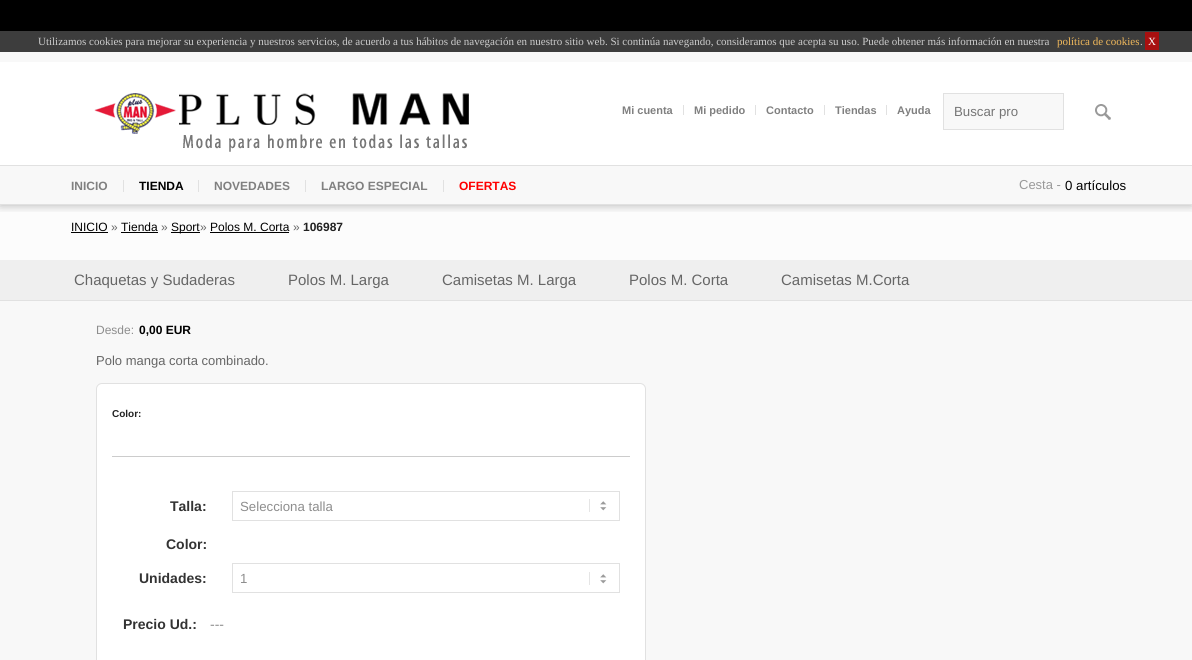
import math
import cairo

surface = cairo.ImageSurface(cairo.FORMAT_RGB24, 1192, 660)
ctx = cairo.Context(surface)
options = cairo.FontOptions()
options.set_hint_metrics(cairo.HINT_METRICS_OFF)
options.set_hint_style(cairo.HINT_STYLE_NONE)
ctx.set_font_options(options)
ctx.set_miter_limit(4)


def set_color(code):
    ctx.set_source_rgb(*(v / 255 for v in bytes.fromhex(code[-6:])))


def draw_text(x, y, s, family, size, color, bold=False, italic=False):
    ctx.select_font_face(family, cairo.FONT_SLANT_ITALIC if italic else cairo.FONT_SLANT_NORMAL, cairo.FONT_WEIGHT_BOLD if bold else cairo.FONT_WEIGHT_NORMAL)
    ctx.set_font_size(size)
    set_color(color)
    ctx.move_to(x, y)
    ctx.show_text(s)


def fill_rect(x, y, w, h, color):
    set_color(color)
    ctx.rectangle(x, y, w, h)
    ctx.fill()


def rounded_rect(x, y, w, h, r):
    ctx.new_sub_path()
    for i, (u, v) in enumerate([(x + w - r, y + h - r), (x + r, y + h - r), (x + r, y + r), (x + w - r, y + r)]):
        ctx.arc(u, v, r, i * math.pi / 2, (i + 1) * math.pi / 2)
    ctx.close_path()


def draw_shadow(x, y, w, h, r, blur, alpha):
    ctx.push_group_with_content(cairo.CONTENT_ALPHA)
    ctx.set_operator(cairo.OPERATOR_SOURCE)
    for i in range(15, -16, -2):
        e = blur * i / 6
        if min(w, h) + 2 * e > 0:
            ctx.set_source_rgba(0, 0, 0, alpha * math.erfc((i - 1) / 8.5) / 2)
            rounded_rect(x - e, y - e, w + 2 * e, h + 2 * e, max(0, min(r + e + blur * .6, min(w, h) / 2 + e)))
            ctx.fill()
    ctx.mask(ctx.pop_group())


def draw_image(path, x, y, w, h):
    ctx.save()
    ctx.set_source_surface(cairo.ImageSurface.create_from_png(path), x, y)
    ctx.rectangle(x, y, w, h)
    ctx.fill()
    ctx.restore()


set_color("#000000")
ctx.paint()
fill_rect(0, 52, 1192, 152, "#f8f8f8")
fill_rect(0, 31, 1192, 21, "#3d3d3d")
draw_text(38, 45, "Utilizamos cookies para mejorar su experiencia y nuestros servicios, de acuerdo a tus hábitos de navegación en nuestro sitio web. Si continúa navegando, consideramos que acepta su uso. Puede obtener más información en nuestra", "Liberation Serif", 11, "#cccccc")
draw_text(1057, 45, "política de cookies", "Liberation Serif", 11, "#f2ba5c")
draw_text(1140, 45, ".", "Liberation Serif", 11, "#cccccc")
fill_rect(1145, 32, 14, 18, "#a81010")
draw_text(1148, 45, "X", "Liberation Serif", 11, "#ffffff")
fill_rect(0, 205, 1192, 55, "#fcfcfc")
ctx.save()
ctx.rectangle(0, 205, 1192, 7)
ctx.clip()
set_color("#000000")
draw_shadow(0, 165, 1192, 40, 0, 5, 0.3)
ctx.restore()
fill_rect(0, 62, 1192, 103, "#ffffff")
draw_image("assets/img1.png", 94, 93, 375, 59)
fill_rect(683, 105, 1, 10, "#e1e1e1")
draw_text(622, 114, "Mi cuenta", "Liberation Sans", 11, "#808080", bold=True)
fill_rect(755, 105, 1, 10, "#e1e1e1")
draw_text(694, 114, "Mi pedido", "Liberation Sans", 11, "#808080", bold=True)
fill_rect(824, 105, 1, 10, "#e1e1e1")
draw_text(766, 114, "Contacto", "Liberation Sans", 11, "#808080", bold=True)
fill_rect(886, 105, 1, 10, "#e1e1e1")
draw_text(835, 114, "Tiendas", "Liberation Sans", 11, "#808080", bold=True)
draw_text(897, 114, "Ayuda", "Liberation Sans", 11, "#808080", bold=True)
set_color("#f8f8f8")
ctx.rectangle(943.5, 93.5, 120, 36)
ctx.fill_preserve()
set_color("#e1e1e1")
ctx.set_line_width(1)
ctx.stroke()
draw_text(954, 116, "Buscar pro", "Liberation Sans", 13.25, "#757575")
draw_image("assets/img2.png", 1095, 104, 16, 16)
fill_rect(0, 165, 1192, 1, "#e1e1e1")
fill_rect(0, 204, 1192, 1, "#e1e1e1")
draw_text(71, 190, "INICIO", "Liberation Sans", 12, "#808080", bold=True)
fill_rect(123, 180, 1, 12, "#e1e1e1")
draw_text(139, 190, "TIENDA", "Liberation Sans", 12, "#000000", bold=True)
fill_rect(198, 180, 1, 12, "#e1e1e1")
draw_text(214, 190, "NOVEDADES", "Liberation Sans", 12, "#808080", bold=True)
fill_rect(305, 180, 1, 12, "#e1e1e1")
draw_text(321, 190, "LARGO ESPECIAL", "Liberation Sans", 12, "#808080", bold=True)
fill_rect(443, 180, 1, 12, "#e1e1e1")
draw_text(459, 190, "OFERTAS", "Liberation Sans", 12, "#ff0000", bold=True)
draw_text(1019, 189, "Cesta -", "Liberation Sans", 13, "#999999")
draw_text(1065, 190, "0 artículos", "Liberation Sans", 13.25, "#000000")
fill_rect(0, 300, 1192, 1, "#e1e1e1")
draw_text(71, 231, "INICIO", "Liberation Sans", 12, "#000000")
fill_rect(71, 232, 37, 1, "#000000")
draw_text(111, 231, "»", "Liberation Sans", 12, "#666666")
draw_text(121, 231, "Tienda", "Liberation Sans", 12, "#000000")
fill_rect(121, 232, 37, 1, "#000000")
draw_text(161, 231, "»", "Liberation Sans", 12, "#666666")
fill_rect(171, 232, 29, 1, "#000000")
draw_text(171, 231, "Sport", "Liberation Sans", 12, "#000000")
draw_text(200, 231, "»", "Liberation Sans", 12, "#666666")
draw_text(210, 231, "Polos M. Corta", "Liberation Sans", 12, "#000000")
fill_rect(210, 232, 79, 1, "#000000")
draw_text(293, 231, "»", "Liberation Sans", 12, "#666666")
draw_text(303, 231, "106987", "Liberation Sans", 12, "#222222", bold=True)
fill_rect(0, 260, 1192, 40, "#efefef")
draw_text(74, 285, "Chaquetas y Sudaderas", "Liberation Sans", 15, "#666666")
draw_text(288, 285, "Polos M. Larga", "Liberation Sans", 15, "#666666")
draw_text(442, 285, "Camisetas M. Larga", "Liberation Sans", 15, "#666666")
draw_text(629, 285, "Polos M. Corta", "Liberation Sans", 15, "#666666")
draw_text(781, 285, "Camisetas M.Corta", "Liberation Sans", 15, "#666666")
fill_rect(0, 301, 1192, 359, "#f8f8f8")
draw_text(96, 334, "Desde:", "Liberation Sans", 12, "#8d8d8d")
draw_text(139, 334, "0,00 EUR", "Liberation Sans", 12, "#000000", bold=True)
draw_text(96, 365, "Polo manga corta combinado.", "Liberation Sans", 13, "#666666")
set_color("#ffffff")
rounded_rect(96.5, 383.5, 549, 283, 5.5)
ctx.fill_preserve()
set_color("#e1e1e1")
ctx.stroke()
fill_rect(112, 456, 518, 1, "#cccccc")
draw_text(112, 417, "Color:", "Liberation Sans", 10, "#222222", bold=True)
draw_text(170, 511, "Talla:", "Liberation Sans", 14, "#333333", bold=True)
draw_image("assets/img3.png", 589, 499, 18, 13)
ctx.rectangle(232.5, 491.5, 387, 29)
set_color("#e1e1e1")
ctx.stroke()
draw_text(240, 511, "Selecciona talla", "Liberation Sans", 13.25, "#8d8d8d")
draw_text(166, 549, "Color:", "Liberation Sans", 14, "#333333", bold=True)
draw_text(139, 583, "Unidades:", "Liberation Sans", 14, "#333333", bold=True)
draw_image("assets/img3.png", 589, 572, 18, 13)
ctx.rectangle(232.5, 563.5, 387, 29)
set_color("#e1e1e1")
ctx.stroke()
draw_text(240, 583, "1", "Liberation Sans", 13.25, "#8d8d8d")
draw_text(123, 629, "Precio Ud.:", "Liberation Sans", 14, "#333333", bold=True)
draw_text(210, 629, "---", "Liberation Sans", 14, "#8d8d8d")
surface.write_to_png("output.png")
